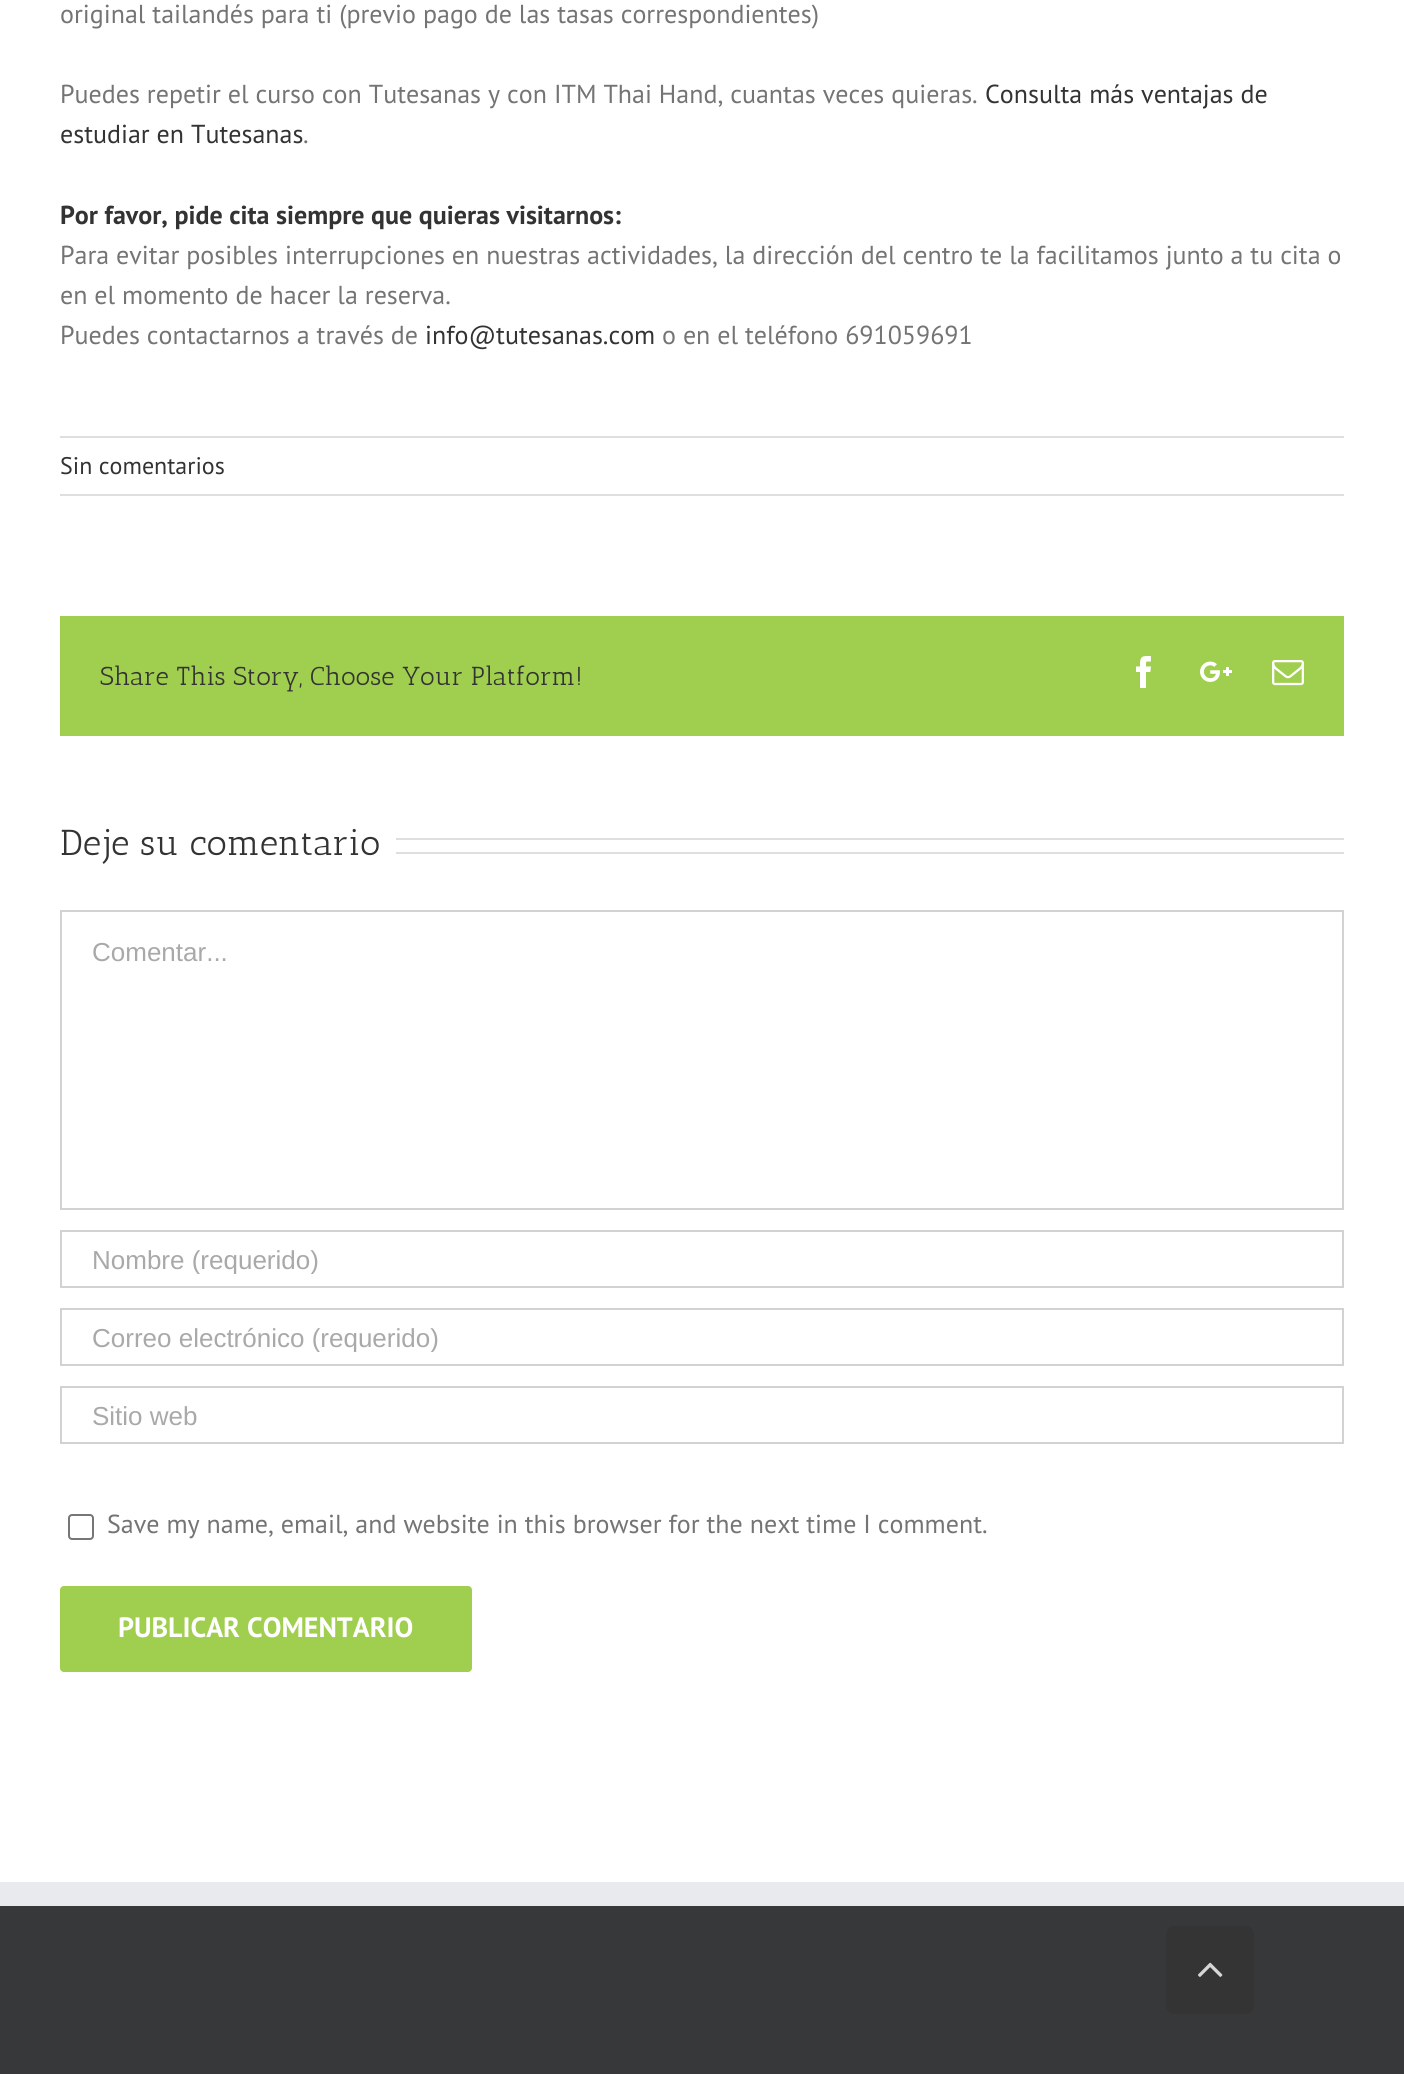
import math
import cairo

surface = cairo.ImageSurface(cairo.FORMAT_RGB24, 1404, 2074)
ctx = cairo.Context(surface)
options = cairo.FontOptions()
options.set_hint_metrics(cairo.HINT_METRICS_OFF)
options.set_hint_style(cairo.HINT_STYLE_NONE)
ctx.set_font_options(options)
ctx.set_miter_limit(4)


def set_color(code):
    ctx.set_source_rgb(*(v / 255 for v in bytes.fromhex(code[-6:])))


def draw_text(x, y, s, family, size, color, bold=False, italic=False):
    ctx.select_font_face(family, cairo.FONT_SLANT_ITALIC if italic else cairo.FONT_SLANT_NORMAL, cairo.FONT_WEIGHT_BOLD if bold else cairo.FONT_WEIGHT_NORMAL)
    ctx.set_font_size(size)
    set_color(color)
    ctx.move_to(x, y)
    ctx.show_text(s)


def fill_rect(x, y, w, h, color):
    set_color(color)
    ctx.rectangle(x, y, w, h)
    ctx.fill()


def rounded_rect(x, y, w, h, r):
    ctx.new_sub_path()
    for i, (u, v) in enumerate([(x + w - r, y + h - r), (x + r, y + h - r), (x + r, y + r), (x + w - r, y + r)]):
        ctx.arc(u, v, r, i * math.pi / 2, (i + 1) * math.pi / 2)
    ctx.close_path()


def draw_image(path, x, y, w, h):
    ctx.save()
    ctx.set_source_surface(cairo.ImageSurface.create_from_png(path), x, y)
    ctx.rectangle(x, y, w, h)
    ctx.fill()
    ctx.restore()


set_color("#ffffff")
ctx.paint()
draw_text(60, 23, "original tailandés para ti (previo pago de las tasas correspondientes)", "PT Sans", 26, "#747474")
draw_text(60, 103, "Puedes repetir el curso con Tutesanas y con ITM Thai Hand, cuantas veces quieras.", "PT Sans", 26, "#747474")
draw_text(985, 103, "Consulta más ventajas de", "PT Sans", 26, "#333333")
draw_text(60, 143, "estudiar en Tutesanas", "PT Sans", 26, "#333333")
draw_text(303, 143, ".", "PT Sans", 26, "#747474")
draw_text(60, 224, "Por favor, pide cita siempre que quieras visitarnos:", "PT Sans", 26, "#333333", bold=True)
draw_text(60, 264, "Para evitar posibles interrupciones en nuestras actividades, la dirección del centro te la facilitamos junto a tu cita o", "PT Sans", 26, "#747474")
draw_text(60, 304, "en el momento de hacer la reserva.", "PT Sans", 26, "#747474")
draw_text(60, 344, "Puedes contactarnos a través de", "PT Sans", 26, "#747474")
draw_text(425, 344, "info@tutesanas.com", "PT Sans", 26, "#333333")
draw_text(662, 344, "o en el teléfono 691059691", "PT Sans", 26, "#747474")
fill_rect(60, 436, 1284, 2, "#e0dede")
fill_rect(60, 494, 1284, 2, "#e0dede")
draw_text(60, 474, "Sin comentarios", "PT Sans", 24, "#333333")
fill_rect(60, 616, 1284, 120, "#a0ce4e")
draw_text(100, 685, "Share This Story, Choose Your Platform!", "Antic Slab", 26, "#333333")
draw_image("assets/img1.png", 1136, 656, 15, 32)
draw_image("assets/img2.png", 1200, 661, 32, 21)
draw_image("assets/img3.png", 1272, 660, 32, 26)
draw_text(60, 855, "Deje su comentario", "Antic Slab", 36, "#333333")
fill_rect(396, 838, 948, 2, "#e0dede")
fill_rect(396, 852, 948, 2, "#e0dede")
ctx.rectangle(61, 911, 1282, 298)
set_color("#d2d2d2")
ctx.stroke()
draw_text(92, 961, "Comentar...", "Liberation Sans", 26, "#aaa9a9")
ctx.rectangle(61, 1231, 1282, 56)
set_color("#d2d2d2")
ctx.stroke()
ctx.save()
ctx.rectangle(92, 1244, 1220, 30)
ctx.clip()
draw_text(92, 1269, "Nombre (requerido)", "Liberation Sans", 26, "#aaa9a9")
ctx.restore()
ctx.rectangle(61, 1309, 1282, 56)
ctx.stroke()
ctx.save()
ctx.rectangle(92, 1322, 1220, 30)
ctx.clip()
draw_text(92, 1347, "Correo electrónico (requerido)", "Liberation Sans", 26, "#aaa9a9")
ctx.restore()
ctx.rectangle(61, 1387, 1282, 56)
ctx.stroke()
draw_text(92, 1425, "Sitio web", "Liberation Sans", 26, "#aaa9a9")
rounded_rect(69, 1515, 24, 24, 3)
set_color("#767676")
ctx.stroke()
draw_text(107, 1533, "Save my name, email, and website in this browser for the next time I comment.", "PT Sans", 26, "#747474")
set_color("#a0ce4e")
rounded_rect(60, 1586, 412, 86, 4)
ctx.fill()
draw_text(118, 1637, "PUBLICAR COMENTARIO", "PT Sans", 28, "#ffffff", bold=True)
fill_rect(0, 1906, 1404, 168, "#363839")
fill_rect(0, 1882, 1404, 24, "#e9eaee")
set_color("#343434")
rounded_rect(1166, 1926, 88, 88, 8)
ctx.fill()
draw_image("assets/img4.png", 1198, 1962, 25, 15)
surface.write_to_png("output.png")
